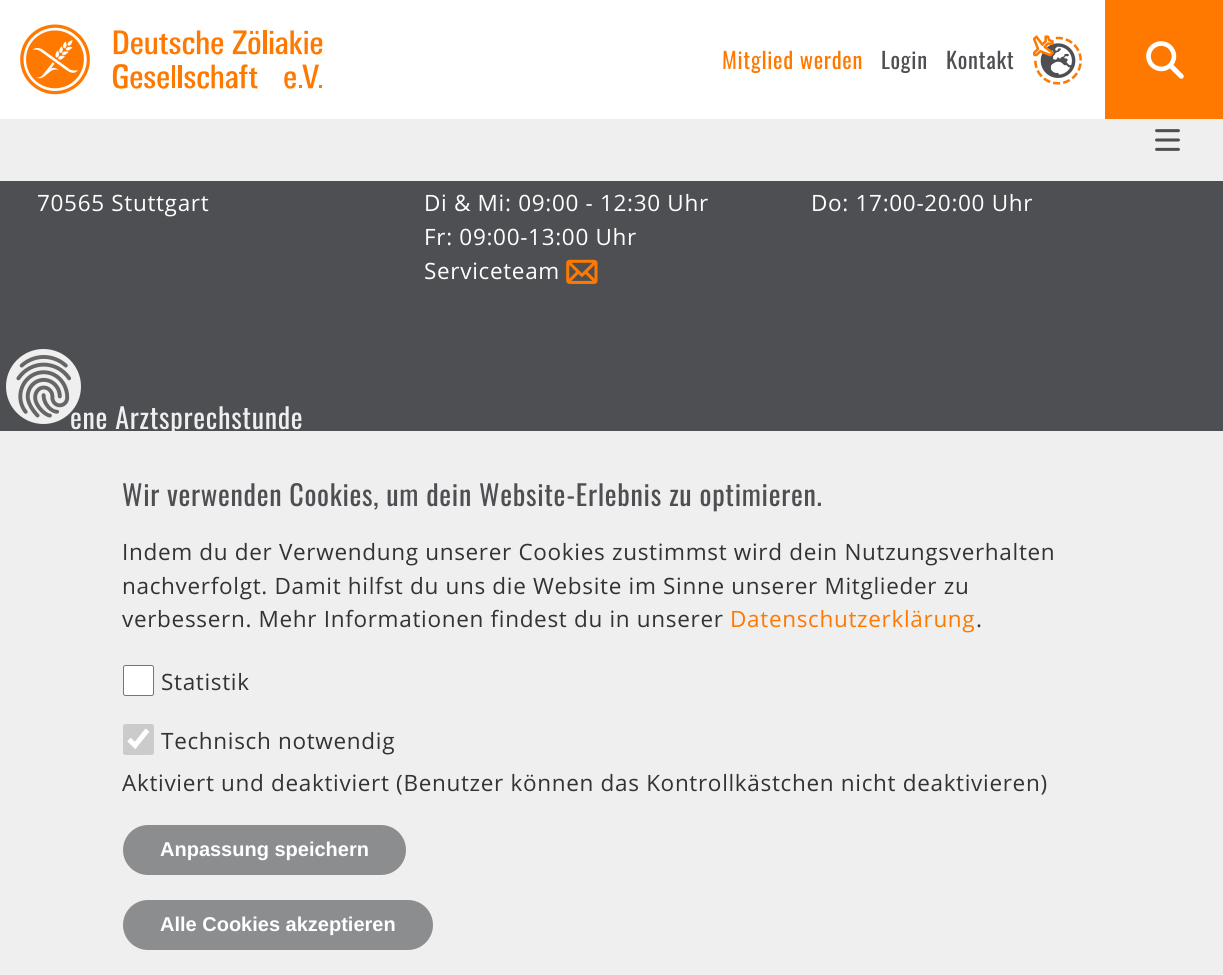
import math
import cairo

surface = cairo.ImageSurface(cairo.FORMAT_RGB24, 1223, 975)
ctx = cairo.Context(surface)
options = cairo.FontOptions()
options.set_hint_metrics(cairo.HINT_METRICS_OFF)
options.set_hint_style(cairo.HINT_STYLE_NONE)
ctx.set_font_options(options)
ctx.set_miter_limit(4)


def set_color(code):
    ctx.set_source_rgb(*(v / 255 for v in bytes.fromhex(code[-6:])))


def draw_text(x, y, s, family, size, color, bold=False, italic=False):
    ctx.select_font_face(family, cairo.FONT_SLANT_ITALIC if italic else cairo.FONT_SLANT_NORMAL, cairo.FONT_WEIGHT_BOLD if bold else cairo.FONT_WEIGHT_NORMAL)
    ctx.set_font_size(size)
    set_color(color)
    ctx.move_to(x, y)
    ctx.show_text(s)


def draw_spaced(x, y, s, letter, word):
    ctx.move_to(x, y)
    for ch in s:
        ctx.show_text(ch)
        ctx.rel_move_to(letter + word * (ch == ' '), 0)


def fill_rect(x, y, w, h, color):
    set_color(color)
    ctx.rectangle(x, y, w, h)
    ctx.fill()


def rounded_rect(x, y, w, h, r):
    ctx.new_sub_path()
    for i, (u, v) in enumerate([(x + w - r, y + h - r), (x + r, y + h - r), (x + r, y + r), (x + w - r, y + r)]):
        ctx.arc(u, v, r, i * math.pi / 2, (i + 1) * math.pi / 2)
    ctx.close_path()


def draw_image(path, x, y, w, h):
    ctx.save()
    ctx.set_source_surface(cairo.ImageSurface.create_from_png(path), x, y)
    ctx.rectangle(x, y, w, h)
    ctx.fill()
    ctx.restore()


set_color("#4d4f53")
ctx.paint()
fill_rect(0, 0, 1105, 119, "#ffffff")
draw_image("assets/img1.png", 20, 24, 303, 71)
ctx.select_font_face("Oswald")
ctx.set_font_size(22.5)
set_color("#ff7900")
draw_spaced(722, 69, "Mitglied werden", 0.68, 0)
set_color("#4d4f53")
draw_spaced(881, 69, "Login", 0.68, 0)
draw_spaced(946, 69, "Kontakt", 0.68, 0)
draw_image("assets/img2.png", 1033, 35, 49, 50)
fill_rect(1105, 0, 118, 119, "#ff7900")
draw_image("assets/img3.png", 1146, 41, 38, 38)
fill_rect(0, 119, 1223, 62, "#efefef")
draw_image("assets/img4.png", 1155, 129, 25, 22)
ctx.select_font_face("Open Sans")
set_color("#ffffff")
draw_spaced(37, 211, "70565 Stuttgart", 0.68, 0)
draw_spaced(424, 211, "Di & Mi: 09:00 - 12:30 Uhr", 0.68, 0)
draw_spaced(424, 245, "Fr: 09:00-13:00 Uhr", 0.68, 0)
draw_spaced(424, 279, "Serviceteam", 0.68, 0)
draw_image("assets/img5.png", 566, 259, 32, 25)
draw_spaced(811, 211, "Do: 17:00-20:00 Uhr", 0.68, 0)
ctx.select_font_face("Oswald")
ctx.set_font_size(28.1)
set_color("#efefef")
draw_spaced(70, 429, "ene Arztsprechstunde", 0.68, 0)
fill_rect(0, 431, 1223, 544, "#efefef")
ctx.new_path()
ctx.arc(43.5, 386.5, 37.5, 0, 2 * math.pi)
ctx.fill()
draw_image("assets/img6.png", 16, 355, 56, 63)
set_color("#4d4f53")
draw_spaced(122, 506, "Wir verwenden Cookies, um dein Website-Erlebnis zu optimieren.", 0.68, 0)
ctx.select_font_face("Open Sans")
ctx.set_font_size(22.5)
set_color("#333333")
draw_spaced(122, 560, "Indem du der Verwendung unserer Cookies zustimmst wird dein Nutzungsverhalten", 0.68, 0)
draw_spaced(122, 594, "nachverfolgt. Damit hilfst du uns die Website im Sinne unserer Mitglieder zu", 0.68, 0)
draw_spaced(122, 627, "verbessern. Mehr Informationen findest du in unserer", 0.68, 0)
set_color("#ff7900")
draw_spaced(730, 627, "Datenschutzerklärung", 0.68, 0)
set_color("#333333")
draw_spaced(976, 627, ".", 0.68, 0)
set_color("#ffffff")
rounded_rect(123.5, 665.5, 30, 30, 2)
ctx.fill_preserve()
set_color("#767676")
ctx.set_line_width(1)
ctx.stroke()
set_color("#333333")
draw_spaced(161, 690, "Statistik", 0.68, 0)
set_color("#cbcbcb")
rounded_rect(123, 724, 31, 31, 2.5)
ctx.fill()
ctx.new_path()
ctx.move_to(129, 739.5)
ctx.line_to(135, 745.5)
ctx.line_to(147.5, 730)
set_color("#ffffff")
ctx.set_line_width(5)
ctx.stroke()
set_color("#333333")
draw_spaced(161, 749, "Technisch notwendig", 0.68, 0)
draw_spaced(122, 791, "Aktiviert und deaktiviert (Benutzer können das Kontrollkästchen nicht deaktivieren)", 0.68, 0)
set_color("#8b8d8e")
rounded_rect(123, 825, 283, 50, 25)
ctx.fill()
draw_text(160, 856, "Anpassung speichern", "Liberation Sans", 20, "#ffffff", bold=True)
set_color("#8b8d8e")
rounded_rect(123, 900, 310, 50, 25)
ctx.fill()
draw_text(160, 931, "Alle Cookies akzeptieren", "Liberation Sans", 20, "#ffffff", bold=True)
surface.write_to_png("output.png")
